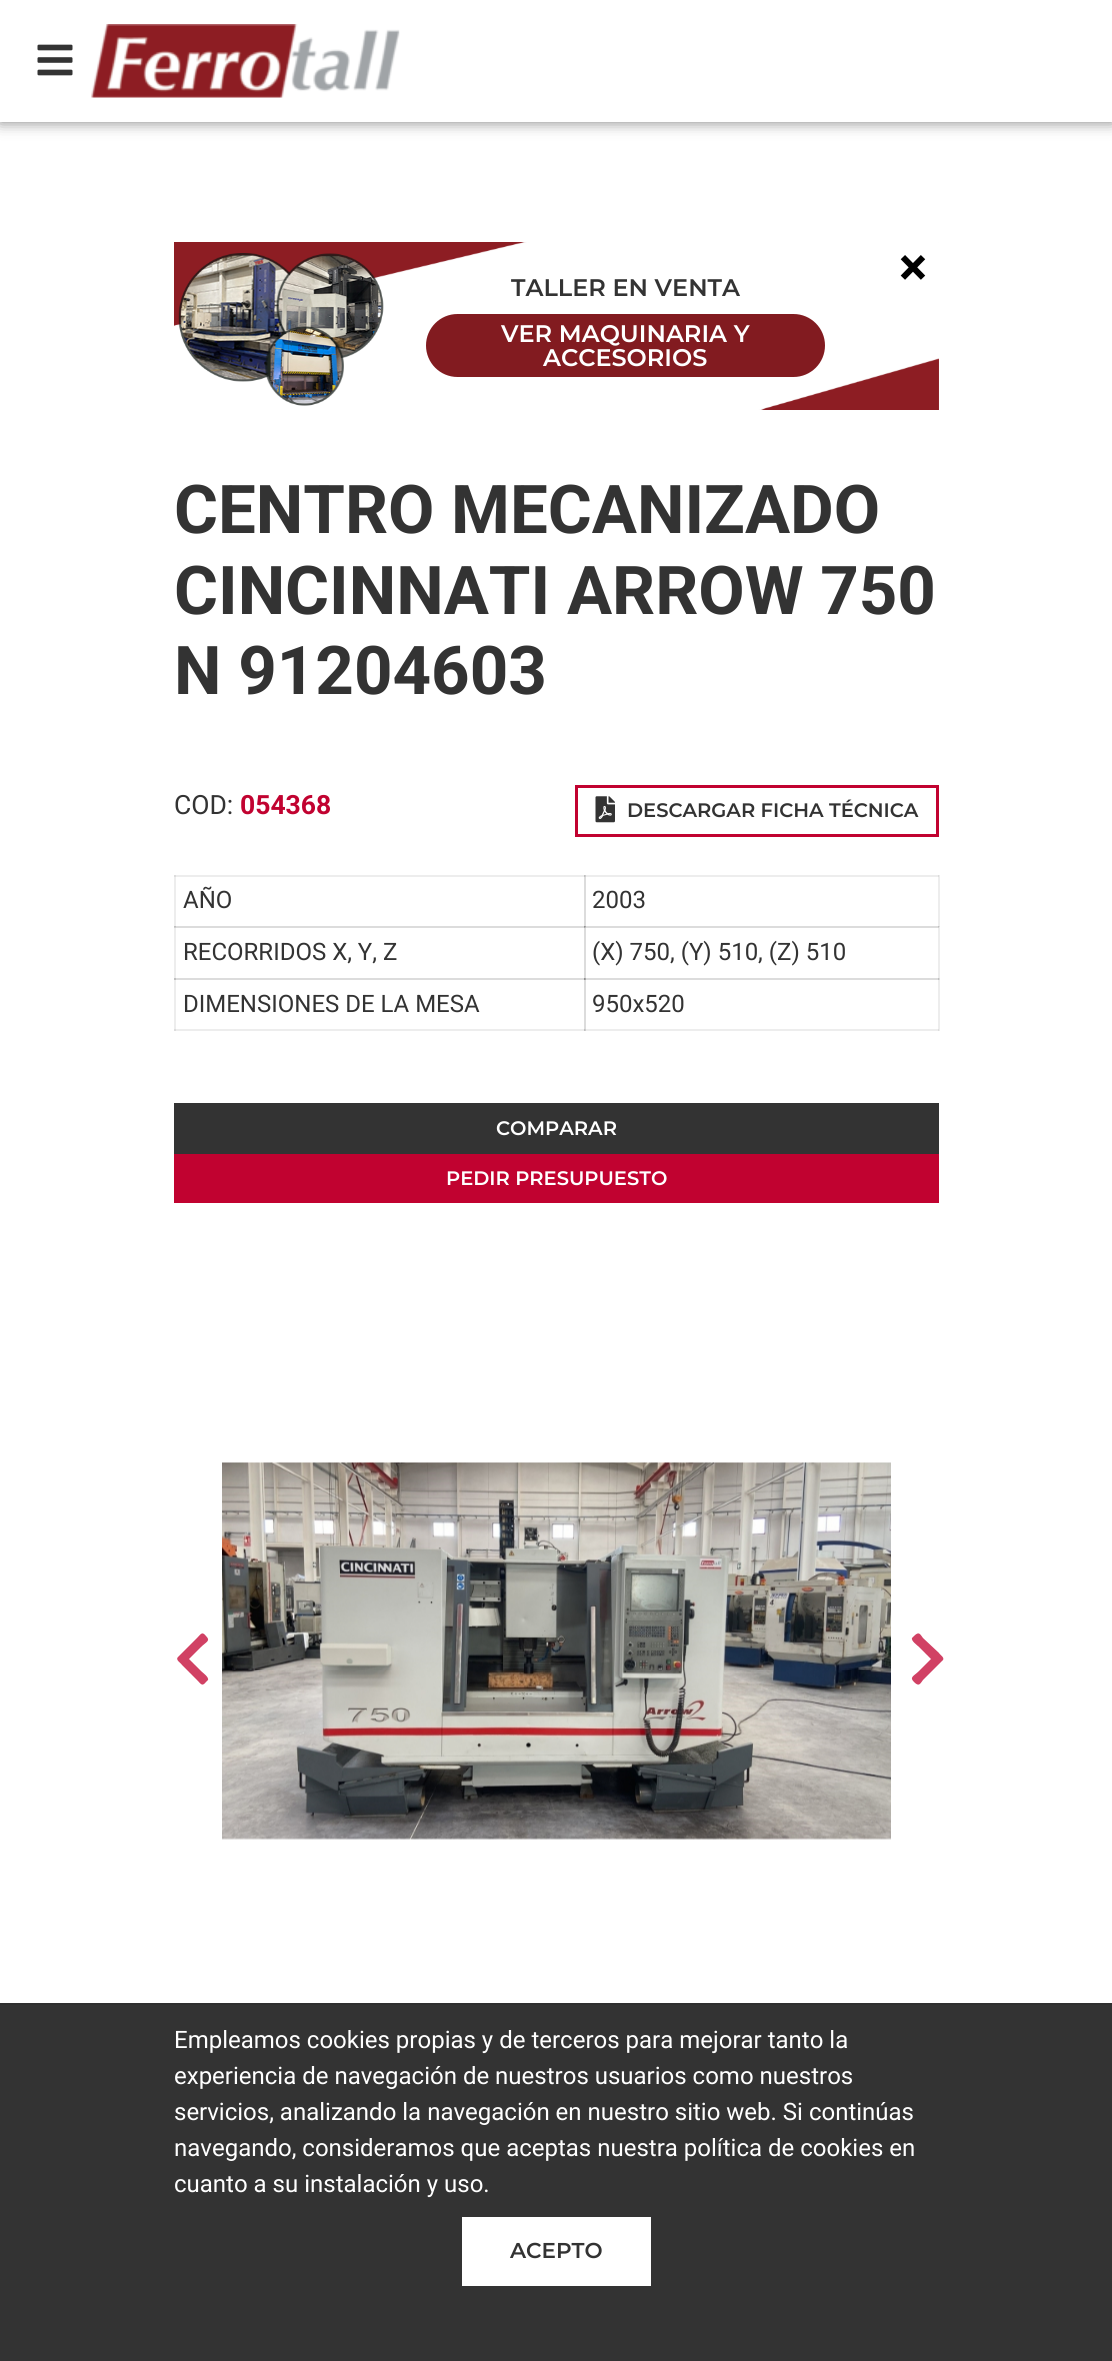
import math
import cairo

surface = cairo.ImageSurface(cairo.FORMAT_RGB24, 1112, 2361)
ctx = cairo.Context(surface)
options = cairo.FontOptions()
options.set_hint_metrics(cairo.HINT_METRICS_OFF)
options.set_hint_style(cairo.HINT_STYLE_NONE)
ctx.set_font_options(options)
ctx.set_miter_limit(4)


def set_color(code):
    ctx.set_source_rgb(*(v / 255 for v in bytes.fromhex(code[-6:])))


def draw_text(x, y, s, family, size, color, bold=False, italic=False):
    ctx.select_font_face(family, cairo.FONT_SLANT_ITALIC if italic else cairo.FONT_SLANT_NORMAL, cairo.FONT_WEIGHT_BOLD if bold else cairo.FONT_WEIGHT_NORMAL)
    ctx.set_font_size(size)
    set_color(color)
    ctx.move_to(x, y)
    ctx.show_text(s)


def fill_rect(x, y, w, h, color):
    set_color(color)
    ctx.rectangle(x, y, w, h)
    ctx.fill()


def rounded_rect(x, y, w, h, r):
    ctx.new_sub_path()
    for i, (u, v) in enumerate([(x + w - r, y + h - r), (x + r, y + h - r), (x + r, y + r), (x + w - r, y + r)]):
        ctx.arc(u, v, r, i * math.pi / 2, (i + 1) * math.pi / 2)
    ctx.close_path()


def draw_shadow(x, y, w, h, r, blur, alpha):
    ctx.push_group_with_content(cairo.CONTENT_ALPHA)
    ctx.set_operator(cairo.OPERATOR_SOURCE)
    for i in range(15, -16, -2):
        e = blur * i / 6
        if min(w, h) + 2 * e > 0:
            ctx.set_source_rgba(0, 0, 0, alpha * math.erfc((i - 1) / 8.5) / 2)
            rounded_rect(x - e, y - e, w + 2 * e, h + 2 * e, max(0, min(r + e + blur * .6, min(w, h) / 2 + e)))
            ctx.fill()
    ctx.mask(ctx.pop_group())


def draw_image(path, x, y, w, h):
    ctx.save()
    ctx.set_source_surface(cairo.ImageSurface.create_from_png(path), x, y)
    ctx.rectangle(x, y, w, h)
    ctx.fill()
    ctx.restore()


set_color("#ffffff")
ctx.paint()
fill_rect(174, 875, 2, 156, "#ededed")
fill_rect(174, 875, 411, 2, "#ededed")
fill_rect(174, 875, 2, 2, "#dcdcdc")
fill_rect(584, 875, 2, 52, "#dcdcdc")
fill_rect(938, 875, 2, 105, "#ededed")
fill_rect(174, 926, 411, 2, "#dcdcdc")
fill_rect(174, 927, 2, 1, "#cdcdcd")
fill_rect(174, 926, 2, 1, "#bfbfbf")
fill_rect(584, 926, 2, 54, "#dcdcdc")
fill_rect(938, 926, 2, 1, "#dcdcdc")
fill_rect(174, 1029, 411, 2, "#ededed")
fill_rect(174, 1029, 2, 2, "#dcdcdc")
fill_rect(174, 978, 411, 2, "#dcdcdc")
fill_rect(174, 978, 2, 2, "#bfbfbf")
fill_rect(584, 978, 2, 53, "#dcdcdc")
fill_rect(584, 1029, 355, 2, "#ededed")
fill_rect(584, 1029, 2, 2, "#cdcdcd")
fill_rect(584, 1029, 1, 2, "#bfbfbf")
fill_rect(938, 978, 2, 53, "#ededed")
fill_rect(584, 978, 356, 2, "#dcdcdc")
fill_rect(938, 1029, 1, 2, "#dcdcdc")
set_color("#000000")
draw_shadow(0, 0, 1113, 122, 0, 7.5, 0.5)
fill_rect(0, 0, 1112, 122, "#ffffff")
draw_image("assets/img1.png", 37, 44, 36, 32)
draw_image("assets/img2.png", 91, 24, 309, 74)
draw_image("assets/img3.png", 174, 242, 765, 168)
draw_text(899, 285, "×", "Roboto", 53, "#000000", bold=True)
draw_text(511, 296, "TALLER EN VENTA", "Montserrat SemiBold", 24, "#333333")
set_color("#821b20")
rounded_rect(427, 315, 397, 61, 30.5)
ctx.fill_preserve()
ctx.stroke()
draw_text(501, 342, "VER MAQUINARIA Y", "Montserrat SemiBold", 24, "#ffffff")
draw_text(543, 366, "ACCESORIOS", "Montserrat SemiBold", 24, "#ffffff")
draw_text(174, 533, "CENTRO MECANIZADO", "Roboto", 67.25, "#333333", bold=True)
draw_text(174, 614, "CINCINNATI ARROW 750", "Roboto", 67.25, "#333333", bold=True)
draw_text(174, 694, "N 91204603", "Roboto", 67.25, "#333333", bold=True)
draw_text(174, 814, "COD:", "Roboto", 26.5, "#333333")
draw_text(240, 814, "054368", "Roboto", 26.5, "#c10230", bold=True)
ctx.rectangle(576.5, 786.5, 361, 49)
ctx.set_line_width(3)
ctx.stroke()
draw_image("assets/img4.png", 595, 796, 20, 27)
draw_text(627, 817, "DESCARGAR FICHA TÉCNICA", "Montserrat SemiBold", 19.5, "#333333")
draw_text(183, 908, "AÑO", "Roboto", 24, "#333333")
fill_rect(584, 875, 355, 2, "#ededed")
fill_rect(584, 875, 2, 2, "#cdcdcd")
fill_rect(584, 875, 1, 2, "#bfbfbf")
fill_rect(938, 875, 1, 2, "#dcdcdc")
draw_text(592, 908, "2003", "Roboto", 24, "#333333")
draw_text(183, 960, "RECORRIDOS X, Y, Z", "Roboto", 24, "#333333")
fill_rect(584, 926, 355, 2, "#dcdcdc")
fill_rect(584, 927, 2, 1, "#bfbfbf")
fill_rect(584, 926, 2, 1, "#a6a6a6")
fill_rect(584, 926, 1, 2, "#a6a6a6")
fill_rect(584, 926, 1, 1, "#8f8f8f")
fill_rect(938, 926, 1, 2, "#cdcdcd")
fill_rect(938, 926, 1, 1, "#bfbfbf")
draw_text(592, 960, "(X) 750, (Y) 510, (Z) 510", "Roboto", 24, "#333333")
draw_text(183, 1012, "DIMENSIONES DE LA MESA", "Roboto", 24, "#333333")
fill_rect(584, 978, 2, 2, "#a6a6a6")
fill_rect(584, 978, 1, 2, "#8f8f8f")
fill_rect(938, 978, 1, 2, "#bfbfbf")
draw_text(592, 1012, "950x520", "Roboto", 24, "#333333")
fill_rect(174, 1103, 765, 51, "#333333")
draw_text(496, 1135, "COMPARAR", "Montserrat SemiBold", 19.5, "#ffffff")
fill_rect(174, 1154, 765, 49, "#c10230")
draw_text(446, 1185, "PEDIR PRESUPUESTO", "Montserrat SemiBold", 19.5, "#ffffff")
set_color("#d14164")
ctx.new_path()
ctx.move_to(178, 1657)
ctx.line_to(197, 1638)
ctx.curve_to(201, 1634, 202, 1631, 206, 1636)
ctx.curve_to(211, 1641, 206, 1642, 201, 1647)
ctx.line_to(189, 1659)
ctx.line_to(201, 1671)
ctx.curve_to(203, 1673, 209, 1677, 208, 1680)
ctx.line_to(206, 1682)
ctx.curve_to(202, 1687, 201, 1684, 197, 1680)
ctx.line_to(182, 1665)
ctx.curve_to(181, 1663, 175, 1660, 178, 1657)
ctx.close_path()
ctx.fill()
draw_image("assets/img5.png", 222, 1462, 669, 378)
ctx.new_path()
ctx.move_to(942, 1661)
ctx.line_to(923, 1680)
ctx.curve_to(920, 1684, 919, 1687, 914, 1682)
ctx.curve_to(909, 1677, 914, 1676, 919, 1671)
ctx.line_to(931, 1659)
ctx.line_to(919, 1647)
ctx.curve_to(917, 1645, 911, 1641, 912, 1638)
ctx.line_to(914, 1636)
ctx.curve_to(919, 1631, 920, 1634, 923, 1638)
ctx.line_to(939, 1653)
ctx.curve_to(940, 1655, 946, 1658, 942, 1661)
ctx.close_path()
ctx.fill()
fill_rect(0, 2005, 1112, 356, "#333333")
fill_rect(0, 2003, 1112, 2, "#2f2f2f")
draw_text(174, 2048, "Empleamos cookies propias y de terceros para mejorar tanto la", "Roboto", 24, "#ffffff")
draw_text(174, 2084, "experiencia de navegación de nuestros usuarios como nuestros", "Roboto", 24, "#ffffff")
draw_text(174, 2120, "servicios, analizando la navegación en nuestro sitio web. Si continúas", "Roboto", 24, "#ffffff")
draw_text(174, 2156, "navegando, consideramos que aceptas nuestra política de cookies en", "Roboto", 24, "#ffffff")
draw_text(174, 2192, "cuanto a su instalación y uso.", "Roboto", 24, "#ffffff")
fill_rect(462, 2217, 189, 69, "#ffffff")
draw_text(510, 2258, "ACEPTO", "Montserrat SemiBold", 21.5, "#333333")
surface.write_to_png("output.png")
